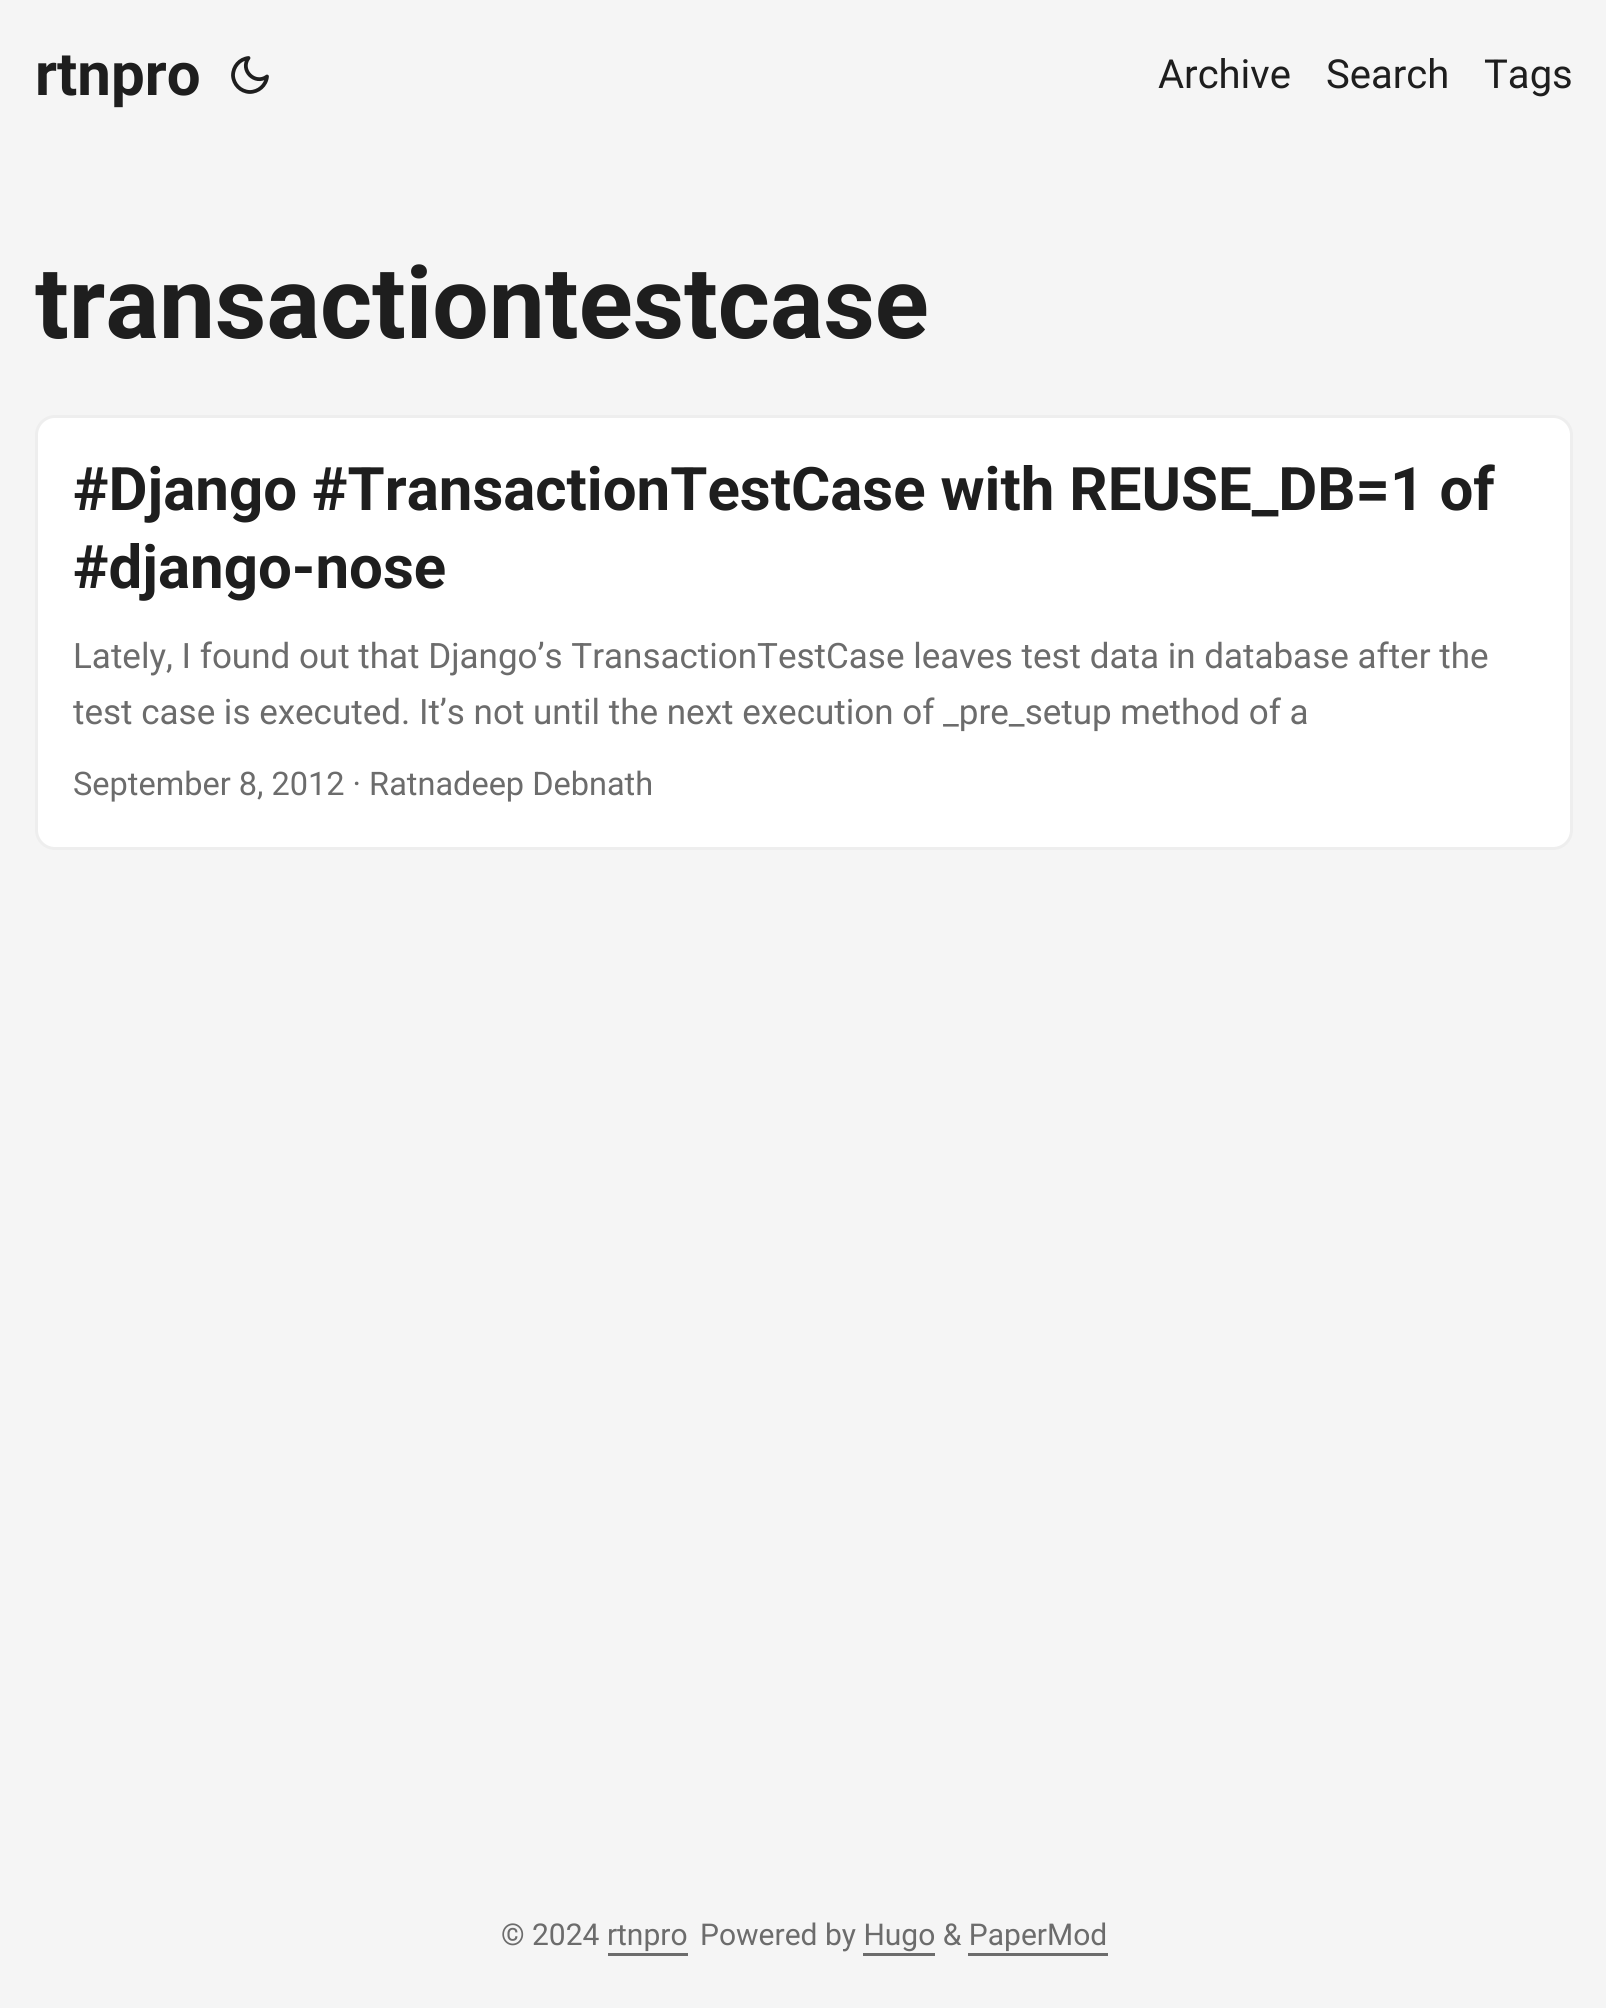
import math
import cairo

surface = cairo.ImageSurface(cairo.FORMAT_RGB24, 1606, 2008)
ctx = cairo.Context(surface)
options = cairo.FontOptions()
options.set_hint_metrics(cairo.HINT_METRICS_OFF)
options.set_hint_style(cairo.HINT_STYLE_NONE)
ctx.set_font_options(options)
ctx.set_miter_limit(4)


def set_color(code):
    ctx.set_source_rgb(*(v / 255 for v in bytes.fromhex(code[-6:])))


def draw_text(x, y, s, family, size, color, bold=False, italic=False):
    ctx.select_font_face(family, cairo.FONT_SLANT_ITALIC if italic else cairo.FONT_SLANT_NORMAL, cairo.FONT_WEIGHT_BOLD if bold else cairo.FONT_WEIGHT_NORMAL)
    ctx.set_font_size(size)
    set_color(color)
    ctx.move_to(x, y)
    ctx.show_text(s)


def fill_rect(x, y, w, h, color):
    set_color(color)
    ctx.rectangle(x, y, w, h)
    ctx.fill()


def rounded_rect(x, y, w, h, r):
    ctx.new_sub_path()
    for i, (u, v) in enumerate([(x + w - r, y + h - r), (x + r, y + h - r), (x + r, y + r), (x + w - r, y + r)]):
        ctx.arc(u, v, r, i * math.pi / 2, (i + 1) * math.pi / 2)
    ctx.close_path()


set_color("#f5f5f5")
ctx.paint()
draw_text(35, 95, "rtnpro", "Roboto", 60, "#1e1e1e", bold=True)
ctx.new_path()
ctx.move_to(267, 76.5)
ctx.curve_to(266, 85.5, 258.5, 92, 249.5, 92)
ctx.curve_to(240.5, 91.5, 233.5, 84.5, 233, 75.5)
ctx.curve_to(233, 66.5, 239.5, 59, 248.5, 58)
ctx.curve_to(239.5, 70, 255, 85.5, 267, 76.5)
ctx.close_path()
ctx.set_line_width(3.8)
ctx.set_line_cap(cairo.LINE_CAP_ROUND)
ctx.set_line_join(cairo.LINE_JOIN_ROUND)
ctx.stroke()
draw_text(1158, 88, "Archive", "Roboto", 40, "#1e1e1e")
draw_text(1326, 88, "Search", "Roboto", 40, "#1e1e1e")
draw_text(1484, 88, "Tags", "Roboto", 40, "#1e1e1e")
draw_text(35, 338, "transactiontestcase", "Roboto", 100, "#1e1e1e", bold=True)
set_color("#ffffff")
rounded_rect(36.5, 416.5, 1535, 432, 18.5)
ctx.fill_preserve()
set_color("#eeeeee")
ctx.set_line_width(3)
ctx.set_line_cap(cairo.LINE_CAP_BUTT)
ctx.set_line_join(cairo.LINE_JOIN_MITER)
ctx.stroke()
draw_text(73, 510, "#Django #TransactionTestCase with REUSE_DB=1 of", "Roboto", 60, "#1e1e1e", bold=True)
draw_text(73, 588, "#django-nose", "Roboto", 60, "#1e1e1e", bold=True)
draw_text(73, 668, "Lately, I found out that Django’s TransactionTestCase leaves test data in database after the", "Roboto", 35, "#6c6c6c")
ctx.save()
ctx.rectangle(73, 628, 1462, 112)
ctx.clip()
draw_text(73, 724, "test case is executed. It’s not until the next execution of _pre_setup method of a", "Roboto", 35, "#6c6c6c")
ctx.restore()
draw_text(73, 795, "September 8, 2012 · Ratnadeep Debnath", "Roboto", 32.5, "#6c6c6c")
draw_text(501, 1945, "© 2024 rtnpro", "Roboto", 30, "#6c6c6c")
fill_rect(608, 1953, 80, 3, "#6c6c6c")
draw_text(700, 1945, "Powered by Hugo & PaperMod", "Roboto", 30, "#6c6c6c")
fill_rect(863, 1953, 72, 3, "#6c6c6c")
fill_rect(968, 1953, 140, 3, "#6c6c6c")
surface.write_to_png("output.png")
